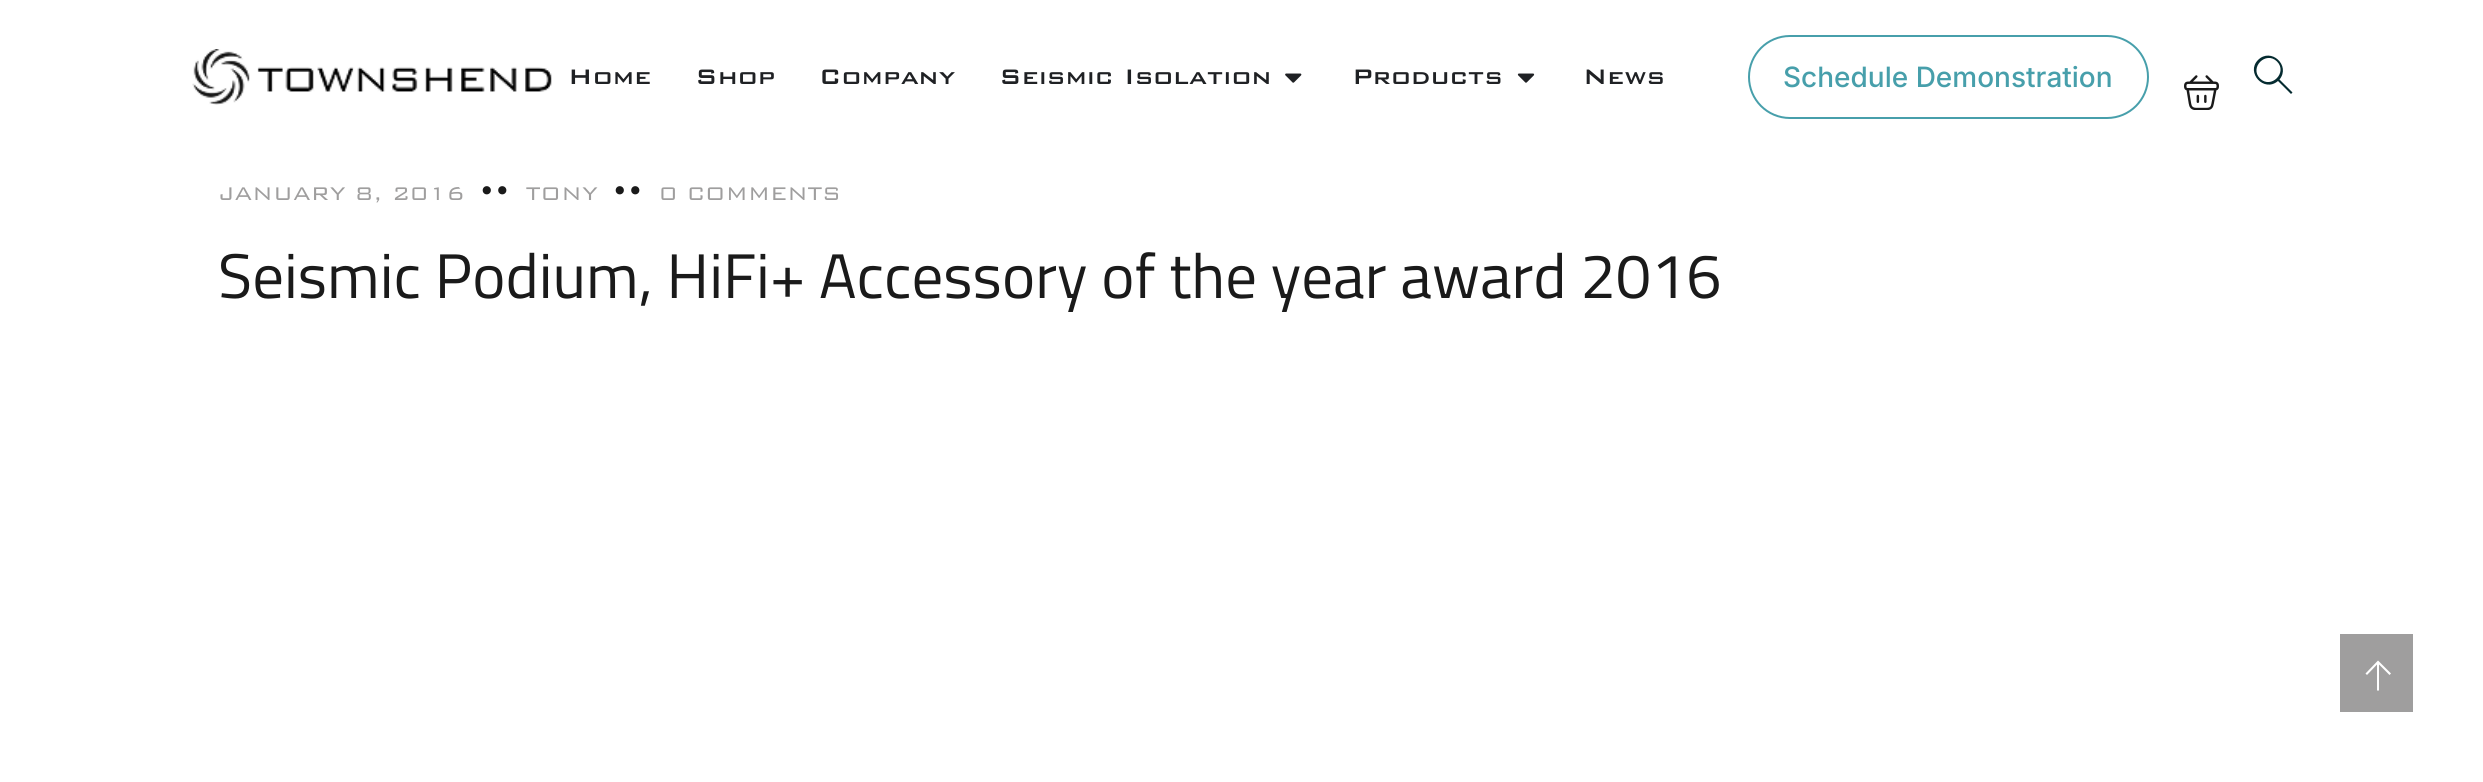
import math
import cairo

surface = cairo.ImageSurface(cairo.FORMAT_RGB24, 2483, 782)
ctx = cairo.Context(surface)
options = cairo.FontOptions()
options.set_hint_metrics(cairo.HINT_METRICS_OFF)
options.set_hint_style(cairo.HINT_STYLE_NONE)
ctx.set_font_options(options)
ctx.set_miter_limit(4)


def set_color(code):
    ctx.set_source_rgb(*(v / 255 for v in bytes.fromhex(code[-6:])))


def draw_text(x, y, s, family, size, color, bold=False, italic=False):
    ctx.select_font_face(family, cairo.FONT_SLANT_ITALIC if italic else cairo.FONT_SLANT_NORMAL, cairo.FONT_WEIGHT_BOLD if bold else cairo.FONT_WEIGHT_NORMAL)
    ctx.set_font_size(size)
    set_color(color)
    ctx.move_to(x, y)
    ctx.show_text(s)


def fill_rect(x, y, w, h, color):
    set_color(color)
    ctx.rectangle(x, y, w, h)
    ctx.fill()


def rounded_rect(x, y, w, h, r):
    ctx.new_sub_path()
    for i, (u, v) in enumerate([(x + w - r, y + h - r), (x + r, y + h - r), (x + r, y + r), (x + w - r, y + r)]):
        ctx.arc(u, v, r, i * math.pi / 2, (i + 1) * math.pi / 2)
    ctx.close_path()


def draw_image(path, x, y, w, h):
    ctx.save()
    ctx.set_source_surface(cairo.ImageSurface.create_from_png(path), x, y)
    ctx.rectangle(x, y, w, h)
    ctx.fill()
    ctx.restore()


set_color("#ffffff")
ctx.paint()
draw_image("assets/img1.png", 192, 49, 360, 56)
draw_text(568, 84, "Home", "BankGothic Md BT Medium", 28, "#1f2124")
draw_text(695, 84, "Shop", "BankGothic Md BT Medium", 28, "#1f2124")
draw_text(819, 84, "Company", "BankGothic Md BT Medium", 28, "#1f2124")
draw_text(999, 84, "Seismic Isolation", "BankGothic Md BT Medium", 28, "#1f2124")
draw_image("assets/img2.png", 1285, 73, 17, 10)
draw_text(1352, 84, "Products", "BankGothic Md BT Medium", 28, "#1f2124")
draw_image("assets/img3.png", 1517, 73, 18, 10)
draw_text(1583, 84, "News", "BankGothic Md BT Medium", 28, "#1f2124")
rounded_rect(1749, 36, 399, 82, 41)
set_color("#479fab")
ctx.stroke()
draw_text(1783, 87, "Schedule Demonstration", "Inter Medium", 28, "#479fab")
draw_image("assets/img4.png", 2184, 75, 35, 35)
set_color("#052b30")
ctx.new_path()
ctx.move_to(2292.5, 92.5)
ctx.line_to(2291, 94)
ctx.line_to(2278, 81)
ctx.curve_to(2264, 93, 2245.5, 72.5, 2258, 60)
ctx.curve_to(2271, 47, 2291, 65.5, 2279.5, 79.5)
ctx.close_path()
ctx.move_to(2260, 78.5)
ctx.curve_to(2271, 89.5, 2288, 72.5, 2277, 61.5)
ctx.curve_to(2266, 50.5, 2249, 67.5, 2260, 78.5)
ctx.close_path()
ctx.fill()
draw_text(218, 200, "JANUARY 8, 2016", "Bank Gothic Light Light", 24.5, "#9f9e9e")
draw_text(479, 200, "••", "Josefin Sans Thin", 32, "#1a1a1a")
draw_text(526, 200, "TONY", "Bank Gothic Light Light", 24.5, "#9f9e9e")
draw_text(612, 200, "••", "Josefin Sans Thin", 32, "#1a1a1a")
draw_text(659, 200, "0 COMMENTS", "Bank Gothic Light Light", 24.5, "#9f9e9e")
draw_text(218, 298, "Seismic Podium, HiFi+ Accessory of the year award 2016", "Titillium Web", 63, "#1a1a1a")
fill_rect(2340, 634, 73, 78, "#9f9e9e")
set_color("#ffffff")
ctx.new_path()
ctx.move_to(2391, 673.5)
ctx.line_to(2389.5, 675)
ctx.line_to(2379, 664.5)
ctx.line_to(2379, 690.5)
ctx.line_to(2377, 690.5)
ctx.line_to(2377, 664.5)
ctx.line_to(2367, 675)
ctx.line_to(2365.5, 673.5)
ctx.line_to(2378, 660.5)
ctx.close_path()
ctx.fill()
surface.write_to_png("output.png")
